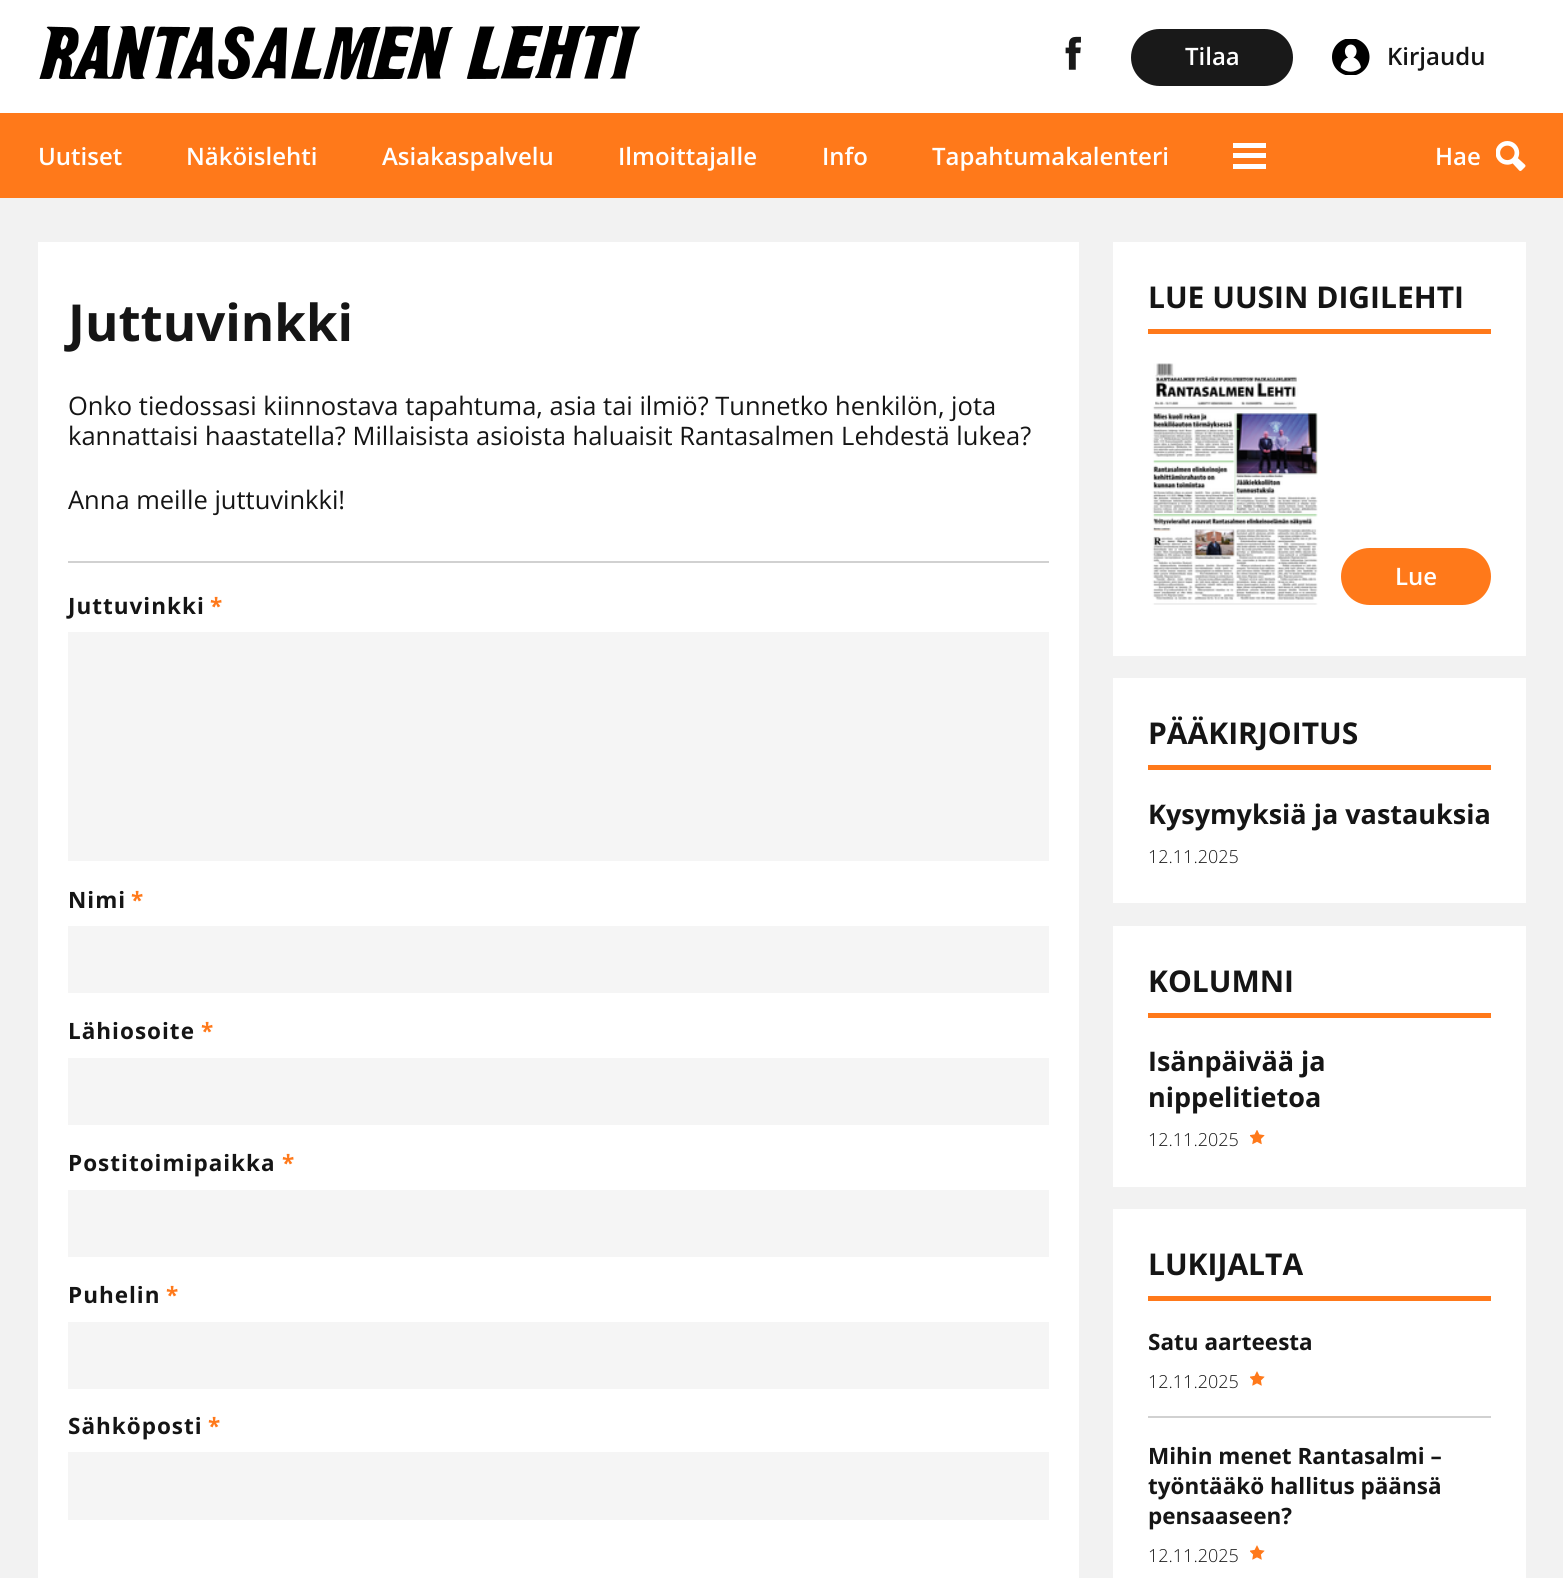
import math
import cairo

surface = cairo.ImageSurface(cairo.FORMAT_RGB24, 1563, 1578)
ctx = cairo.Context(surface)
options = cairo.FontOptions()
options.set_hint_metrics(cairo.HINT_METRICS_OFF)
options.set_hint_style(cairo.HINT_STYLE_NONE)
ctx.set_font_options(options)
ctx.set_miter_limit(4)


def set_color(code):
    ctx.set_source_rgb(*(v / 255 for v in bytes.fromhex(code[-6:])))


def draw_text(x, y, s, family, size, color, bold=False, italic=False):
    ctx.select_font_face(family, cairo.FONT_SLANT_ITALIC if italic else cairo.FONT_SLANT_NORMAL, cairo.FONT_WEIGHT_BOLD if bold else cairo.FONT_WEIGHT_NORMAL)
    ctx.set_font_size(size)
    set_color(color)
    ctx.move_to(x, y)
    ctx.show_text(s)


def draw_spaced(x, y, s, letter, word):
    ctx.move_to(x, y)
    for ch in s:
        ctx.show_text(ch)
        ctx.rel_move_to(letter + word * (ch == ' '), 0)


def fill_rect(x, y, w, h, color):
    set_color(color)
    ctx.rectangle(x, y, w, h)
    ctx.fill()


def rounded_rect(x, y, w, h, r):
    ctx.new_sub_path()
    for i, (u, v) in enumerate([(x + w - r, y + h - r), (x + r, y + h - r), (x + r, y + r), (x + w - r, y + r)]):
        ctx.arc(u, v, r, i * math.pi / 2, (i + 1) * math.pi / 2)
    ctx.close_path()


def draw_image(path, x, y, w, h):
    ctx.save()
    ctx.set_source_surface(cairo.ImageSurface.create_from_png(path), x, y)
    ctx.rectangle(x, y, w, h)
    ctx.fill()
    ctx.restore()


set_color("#f2f2f2")
ctx.paint()
fill_rect(0, 0, 1563, 113, "#ffffff")
draw_image("assets/img1.png", 39, 26, 601, 54)
draw_image("assets/img2.png", 1065, 36, 16, 34)
set_color("#191919")
rounded_rect(1131, 29, 162, 57, 28.5)
ctx.fill()
draw_text(1185, 65, "Tilaa", "Open Sans SemiBold", 24, "#ffffff")
draw_image("assets/img3.png", 1332, 39, 38, 36)
draw_text(1387, 65, "Kirjaudu", "Open Sans SemiBold", 24, "#151515")
fill_rect(0, 113, 1563, 85, "#ff791a")
draw_text(38, 165, "Uutiset", "Open Sans SemiBold", 24, "#ffffff")
draw_text(186, 165, "Näköislehti", "Open Sans SemiBold", 24, "#ffffff")
draw_text(382, 165, "Asiakaspalvelu", "Open Sans SemiBold", 24, "#ffffff")
draw_text(618, 165, "Ilmoittajalle", "Open Sans SemiBold", 24, "#ffffff")
draw_text(822, 165, "Info", "Open Sans SemiBold", 24, "#ffffff")
draw_text(932, 165, "Tapahtumakalenteri", "Open Sans SemiBold", 24, "#ffffff")
fill_rect(1233, 143, 33, 5, "#ffffff")
fill_rect(1233, 153, 33, 5, "#ffffff")
fill_rect(1233, 164, 33, 5, "#ffffff")
draw_text(1435, 165, "Hae", "Open Sans SemiBold", 24, "#ffffff")
draw_image("assets/img4.png", 1496, 141, 30, 30)
fill_rect(38, 242, 1041, 1336, "#ffffff")
draw_text(68, 341, "Juttuvinkki", "Open Sans", 51, "#151515", bold=True)
draw_text(68, 415, "Onko tiedossasi kiinnostava tapahtuma, asia tai ilmiö? Tunnetko henkilön, jota", "Open Sans", 25.5, "#151515")
draw_text(68, 445, "kannattaisi haastatella? Millaisista asioista haluaisit Rantasalmen Lehdestä lukea?", "Open Sans", 25.5, "#151515")
draw_text(68, 509, "Anna meille juttuvinkki!", "Open Sans", 25.5, "#151515")
fill_rect(68, 561, 981, 2, "#d1d1d1")
ctx.select_font_face("Open Sans", cairo.FONT_SLANT_NORMAL, cairo.FONT_WEIGHT_BOLD)
ctx.set_font_size(22.5)
set_color("#151515")
draw_spaced(68, 614, "Juttuvinkki", 1, 0)
set_color("#ff791a")
draw_spaced(210, 614, "*", 1, 0)
fill_rect(68, 632, 981, 229, "#f5f5f5")
set_color("#151515")
draw_spaced(68, 908, "Nimi", 1, 0)
set_color("#ff791a")
draw_spaced(131, 908, "*", 1, 0)
fill_rect(68, 926, 981, 67, "#f5f5f5")
set_color("#151515")
draw_spaced(68, 1039, "Lähiosoite", 1, 0)
set_color("#ff791a")
draw_spaced(201, 1039, "*", 1, 0)
fill_rect(68, 1058, 981, 67, "#f5f5f5")
set_color("#151515")
draw_spaced(68, 1171, "Postitoimipaikka", 1, 0)
set_color("#ff791a")
draw_spaced(282, 1171, "*", 1, 0)
fill_rect(68, 1190, 981, 67, "#f5f5f5")
set_color("#151515")
draw_spaced(68, 1303, "Puhelin", 1, 0)
set_color("#ff791a")
draw_spaced(166, 1303, "*", 1, 0)
fill_rect(68, 1322, 981, 67, "#f5f5f5")
set_color("#151515")
draw_spaced(68, 1434, "Sähköposti", 1, 0)
set_color("#ff791a")
draw_spaced(208, 1434, "*", 1, 0)
fill_rect(68, 1452, 981, 68, "#f5f5f5")
fill_rect(1113, 242, 413, 414, "#ffffff")
fill_rect(1148, 329, 343, 5, "#ff791a")
draw_text(1148, 308, "LUE UUSIN DIGILEHTI", "Open Sans", 30, "#151515", bold=True)
draw_image("assets/img5.png", 1152, 363, 166, 242)
set_color("#ff791a")
rounded_rect(1341, 548, 150, 57, 28.5)
ctx.fill()
draw_text(1395, 585, "Lue", "Open Sans SemiBold", 24, "#ffffff")
fill_rect(1113, 678, 413, 225, "#ffffff")
fill_rect(1148, 765, 343, 5, "#ff791a")
draw_text(1148, 744, "PÄÄKIRJOITUS", "Open Sans", 30, "#151515", bold=True)
draw_text(1148, 824, "Kysymyksiä ja vastauksia", "Open Sans", 27, "#151515", bold=True)
draw_text(1148, 863, "12.11.2025", "Open Sans Light", 18, "#151515")
fill_rect(1113, 926, 413, 261, "#ffffff")
fill_rect(1148, 1013, 343, 5, "#ff791a")
draw_text(1148, 992, "KOLUMNI", "Open Sans", 30, "#151515", bold=True)
draw_text(1148, 1071, "Isänpäivää ja", "Open Sans", 27, "#151515", bold=True)
draw_text(1148, 1107, "nippelitietoa", "Open Sans", 27, "#151515", bold=True)
draw_text(1148, 1146, "12.11.2025", "Open Sans Light", 18, "#151515")
draw_image("assets/img6.png", 1250, 1130, 15, 15)
fill_rect(1113, 1209, 413, 369, "#ffffff")
fill_rect(1148, 1296, 343, 5, "#ff791a")
draw_text(1148, 1275, "LUKIJALTA", "Open Sans", 30, "#151515", bold=True)
fill_rect(1148, 1416, 343, 2, "#d1d1d1")
draw_text(1148, 1350, "Satu aarteesta", "Open Sans", 22.5, "#151515", bold=True)
draw_text(1148, 1388, "12.11.2025", "Open Sans Light", 18, "#151515")
draw_image("assets/img7.png", 1250, 1371, 15, 15)
draw_text(1148, 1464, "Mihin menet Rantasalmi –", "Open Sans", 22.5, "#151515", bold=True)
draw_text(1148, 1494, "työntääkö hallitus päänsä", "Open Sans", 22.5, "#151515", bold=True)
draw_text(1148, 1524, "pensaaseen?", "Open Sans", 22.5, "#151515", bold=True)
draw_text(1148, 1562, "12.11.2025", "Open Sans Light", 18, "#151515")
draw_image("assets/img7.png", 1250, 1545, 15, 15)
surface.write_to_png("output.png")
